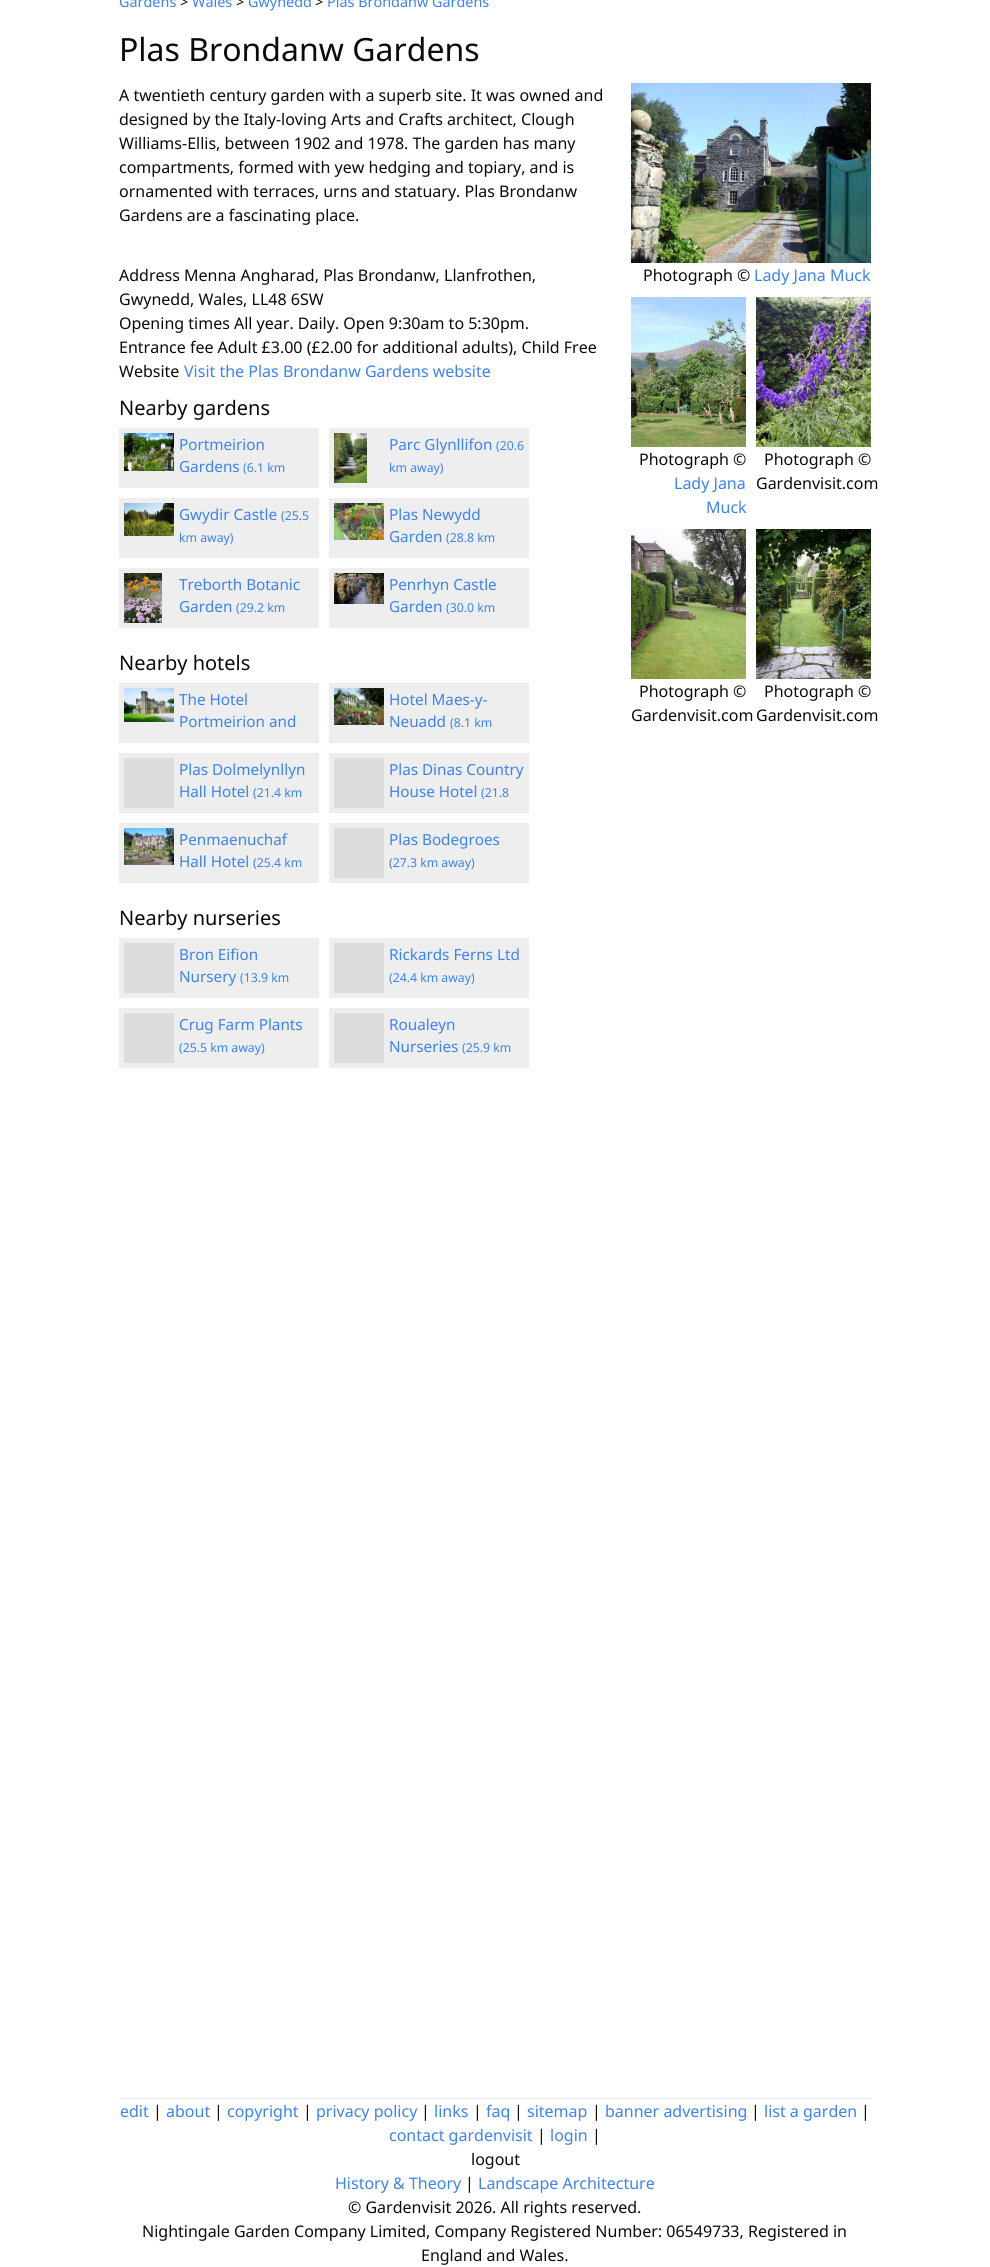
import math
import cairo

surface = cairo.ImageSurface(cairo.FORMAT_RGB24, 990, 2267)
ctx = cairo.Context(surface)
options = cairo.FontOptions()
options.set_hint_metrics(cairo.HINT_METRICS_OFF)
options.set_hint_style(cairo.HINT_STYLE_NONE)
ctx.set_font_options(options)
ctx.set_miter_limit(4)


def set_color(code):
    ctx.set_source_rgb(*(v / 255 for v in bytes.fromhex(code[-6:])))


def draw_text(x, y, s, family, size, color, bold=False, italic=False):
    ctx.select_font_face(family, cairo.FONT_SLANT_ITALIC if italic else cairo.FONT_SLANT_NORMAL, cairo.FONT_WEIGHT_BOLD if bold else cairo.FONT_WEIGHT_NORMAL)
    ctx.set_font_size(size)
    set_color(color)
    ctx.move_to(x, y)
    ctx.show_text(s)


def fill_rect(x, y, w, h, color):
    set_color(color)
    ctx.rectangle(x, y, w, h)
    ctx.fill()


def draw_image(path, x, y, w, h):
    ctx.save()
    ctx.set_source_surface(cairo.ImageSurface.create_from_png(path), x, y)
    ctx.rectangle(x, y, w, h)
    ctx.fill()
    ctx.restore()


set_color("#ffffff")
ctx.paint()
draw_text(119, 7, "Gardens", "Noto Sans", 14.4, "#3b82f6")
draw_text(180, 7, ">", "Noto Sans", 14.4, "#0a0a0a")
draw_text(192, 7, "Wales", "Noto Sans", 14.4, "#3b82f6")
draw_text(236, 7, ">", "Noto Sans", 14.4, "#0a0a0a")
draw_text(248, 7, "Gwynedd", "Noto Sans", 14.4, "#3b82f6")
draw_text(315, 7, ">", "Noto Sans", 14.4, "#0a0a0a")
draw_text(327, 7, "Plas Brondanw Gardens", "Noto Sans", 14.4, "#3b82f6")
draw_text(119, 61, "Plas Brondanw Gardens", "Noto Sans", 32, "#0a0a0a")
draw_text(119, 101, "A twentieth century garden with a superb site. It was owned and", "Noto Sans", 16, "#0a0a0a")
draw_text(119, 125, "designed by the Italy-loving Arts and Crafts architect, Clough", "Noto Sans", 16, "#0a0a0a")
draw_text(119, 149, "Williams-Ellis, between 1902 and 1978. The garden has many", "Noto Sans", 16, "#0a0a0a")
draw_text(119, 173, "compartments, formed with yew hedging and topiary, and is", "Noto Sans", 16, "#0a0a0a")
draw_text(119, 197, "ornamented with terraces, urns and statuary. Plas Brondanw", "Noto Sans", 16, "#0a0a0a")
draw_text(119, 221, "Gardens are a fascinating place.", "Noto Sans", 16, "#0a0a0a")
draw_text(119, 281, "Address Menna Angharad, Plas Brondanw, Llanfrothen,", "Noto Sans", 16, "#0a0a0a")
draw_text(119, 305, "Gwynedd, Wales, LL48 6SW", "Noto Sans", 16, "#0a0a0a")
draw_text(119, 329, "Opening times All year. Daily. Open 9:30am to 5:30pm.", "Noto Sans", 16, "#0a0a0a")
draw_text(119, 353, "Entrance fee Adult £3.00 (£2.00 for additional adults), Child Free", "Noto Sans", 16, "#0a0a0a")
draw_text(119, 377, "Website", "Noto Sans", 16, "#0a0a0a")
draw_text(184, 377, "Visit the Plas Brondanw Gardens website", "Noto Sans", 16, "#3b82f6")
draw_text(119, 415, "Nearby gardens", "Noto Sans", 20, "#0a0a0a")
fill_rect(119, 428, 200, 60, "#eeeeee")
draw_image("assets/img1.png", 124, 433, 50, 38)
draw_text(179, 450, "Portmeirion", "Noto Sans", 15.25, "#3b82f6")
draw_text(179, 472, "Gardens", "Noto Sans", 15.25, "#3b82f6")
draw_text(243, 472, "(6.1 km", "Noto Sans", 12.25, "#3b82f6")
fill_rect(329, 428, 200, 60, "#eeeeee")
draw_image("assets/img2.png", 334, 433, 33, 50)
draw_text(389, 450, "Parc Glynllifon", "Noto Sans", 15.25, "#3b82f6")
draw_text(496, 450, "(20.6", "Noto Sans", 12.25, "#3b82f6")
draw_text(389, 472, "km away)", "Noto Sans", 12.25, "#3b82f6")
fill_rect(119, 498, 200, 60, "#eeeeee")
draw_image("assets/img3.png", 124, 503, 50, 33)
draw_text(179, 520, "Gwydir Castle", "Noto Sans", 15.25, "#3b82f6")
draw_text(281, 520, "(25.5", "Noto Sans", 12.25, "#3b82f6")
draw_text(179, 542, "km away)", "Noto Sans", 12.25, "#3b82f6")
fill_rect(329, 498, 200, 60, "#eeeeee")
draw_image("assets/img4.png", 334, 503, 50, 37)
draw_text(389, 520, "Plas Newydd", "Noto Sans", 15.25, "#3b82f6")
draw_text(389, 542, "Garden", "Noto Sans", 15.25, "#3b82f6")
draw_text(446, 542, "(28.8 km", "Noto Sans", 12.25, "#3b82f6")
fill_rect(119, 568, 200, 60, "#eeeeee")
draw_image("assets/img5.png", 124, 573, 38, 50)
draw_text(179, 590, "Treborth Botanic", "Noto Sans", 15.25, "#3b82f6")
draw_text(179, 612, "Garden", "Noto Sans", 15.25, "#3b82f6")
draw_text(236, 612, "(29.2 km", "Noto Sans", 12.25, "#3b82f6")
fill_rect(329, 568, 200, 60, "#eeeeee")
draw_image("assets/img6.png", 334, 573, 50, 31)
draw_text(389, 590, "Penrhyn Castle", "Noto Sans", 15.25, "#3b82f6")
draw_text(389, 612, "Garden", "Noto Sans", 15.25, "#3b82f6")
draw_text(446, 612, "(30.0 km", "Noto Sans", 12.25, "#3b82f6")
draw_text(119, 670, "Nearby hotels", "Noto Sans", 20, "#0a0a0a")
fill_rect(119, 683, 200, 60, "#eeeeee")
draw_image("assets/img7.png", 124, 688, 50, 34)
draw_text(179, 705, "The Hotel", "Noto Sans", 15.25, "#3b82f6")
draw_text(179, 727, "Portmeirion and", "Noto Sans", 15.25, "#3b82f6")
fill_rect(329, 683, 200, 60, "#eeeeee")
draw_image("assets/img8.png", 334, 688, 50, 37)
draw_text(389, 705, "Hotel Maes-y-", "Noto Sans", 15.25, "#3b82f6")
draw_text(389, 727, "Neuadd", "Noto Sans", 15.25, "#3b82f6")
draw_text(450, 727, "(8.1 km", "Noto Sans", 12.25, "#3b82f6")
fill_rect(119, 753, 200, 60, "#eeeeee")
fill_rect(124, 758, 50, 50, "#dddddd")
draw_text(179, 775, "Plas Dolmelynllyn", "Noto Sans", 15.25, "#3b82f6")
draw_text(179, 797, "Hall Hotel", "Noto Sans", 15.25, "#3b82f6")
draw_text(253, 797, "(21.4 km", "Noto Sans", 12.25, "#3b82f6")
fill_rect(329, 753, 200, 60, "#eeeeee")
fill_rect(334, 758, 50, 50, "#dddddd")
draw_text(389, 775, "Plas Dinas Country", "Noto Sans", 15.25, "#3b82f6")
draw_text(389, 797, "House Hotel", "Noto Sans", 15.25, "#3b82f6")
draw_text(481, 797, "(21.8", "Noto Sans", 12.25, "#3b82f6")
fill_rect(119, 823, 200, 60, "#eeeeee")
draw_image("assets/img9.png", 124, 828, 50, 37)
draw_text(179, 845, "Penmaenuchaf", "Noto Sans", 15.25, "#3b82f6")
draw_text(179, 867, "Hall Hotel", "Noto Sans", 15.25, "#3b82f6")
draw_text(253, 867, "(25.4 km", "Noto Sans", 12.25, "#3b82f6")
fill_rect(329, 823, 200, 60, "#eeeeee")
fill_rect(334, 828, 50, 50, "#dddddd")
draw_text(389, 845, "Plas Bodegroes", "Noto Sans", 15.25, "#3b82f6")
draw_text(389, 867, "(27.3 km away)", "Noto Sans", 12.25, "#3b82f6")
draw_text(119, 925, "Nearby nurseries", "Noto Sans", 20, "#0a0a0a")
fill_rect(119, 938, 200, 60, "#eeeeee")
fill_rect(124, 943, 50, 50, "#dddddd")
draw_text(179, 960, "Bron Eifion", "Noto Sans", 15.25, "#3b82f6")
draw_text(179, 982, "Nursery", "Noto Sans", 15.25, "#3b82f6")
draw_text(240, 982, "(13.9 km", "Noto Sans", 12.25, "#3b82f6")
fill_rect(329, 938, 200, 60, "#eeeeee")
fill_rect(334, 943, 50, 50, "#dddddd")
draw_text(389, 960, "Rickards Ferns Ltd", "Noto Sans", 15.25, "#3b82f6")
draw_text(389, 982, "(24.4 km away)", "Noto Sans", 12.25, "#3b82f6")
fill_rect(119, 1008, 200, 60, "#eeeeee")
fill_rect(124, 1013, 50, 50, "#dddddd")
draw_text(179, 1030, "Crug Farm Plants", "Noto Sans", 15.25, "#3b82f6")
draw_text(179, 1052, "(25.5 km away)", "Noto Sans", 12.25, "#3b82f6")
fill_rect(329, 1008, 200, 60, "#eeeeee")
fill_rect(334, 1013, 50, 50, "#dddddd")
draw_text(389, 1030, "Roualeyn", "Noto Sans", 15.25, "#3b82f6")
draw_text(389, 1052, "Nurseries", "Noto Sans", 15.25, "#3b82f6")
draw_text(462, 1052, "(25.9 km", "Noto Sans", 12.25, "#3b82f6")
draw_image("assets/img10.png", 631, 83, 240, 180)
draw_text(643, 281, "Photograph ©", "Noto Sans", 16, "#0a0a0a")
draw_text(754, 281, "Lady Jana Muck", "Noto Sans", 16, "#3b82f6")
draw_image("assets/img11.png", 631, 297, 115, 150)
draw_text(639, 465, "Photograph ©", "Noto Sans", 16, "#0a0a0a")
draw_text(674, 489, "Lady Jana", "Noto Sans", 16, "#3b82f6")
draw_text(706, 513, "Muck", "Noto Sans", 16, "#3b82f6")
draw_image("assets/img12.png", 756, 297, 115, 150)
draw_text(764, 465, "Photograph ©", "Noto Sans", 16, "#0a0a0a")
draw_text(756, 489, "Gardenvisit.com", "Noto Sans", 16, "#0a0a0a")
draw_image("assets/img13.png", 631, 529, 115, 150)
draw_text(639, 697, "Photograph ©", "Noto Sans", 16, "#0a0a0a")
draw_text(631, 721, "Gardenvisit.com", "Noto Sans", 16, "#0a0a0a")
draw_image("assets/img14.png", 756, 529, 115, 150)
draw_text(764, 697, "Photograph ©", "Noto Sans", 16, "#0a0a0a")
draw_text(756, 721, "Gardenvisit.com", "Noto Sans", 16, "#0a0a0a")
fill_rect(119, 2098, 752, 1, "#e5e7eb")
draw_text(120, 2117, "edit", "Noto Sans", 16, "#3b82f6")
draw_text(153, 2117, "|", "Noto Sans", 16, "#0a0a0a")
draw_text(166, 2117, "about", "Noto Sans", 16, "#3b82f6")
draw_text(214, 2117, "|", "Noto Sans", 16, "#0a0a0a")
draw_text(227, 2117, "copyright", "Noto Sans", 16, "#3b82f6")
draw_text(303, 2117, "|", "Noto Sans", 16, "#0a0a0a")
draw_text(316, 2117, "privacy policy", "Noto Sans", 16, "#3b82f6")
draw_text(421, 2117, "|", "Noto Sans", 16, "#0a0a0a")
draw_text(434, 2117, "links", "Noto Sans", 16, "#3b82f6")
draw_text(473, 2117, "|", "Noto Sans", 16, "#0a0a0a")
draw_text(486, 2117, "faq", "Noto Sans", 16, "#3b82f6")
draw_text(514, 2117, "|", "Noto Sans", 16, "#0a0a0a")
draw_text(527, 2117, "sitemap", "Noto Sans", 16, "#3b82f6")
draw_text(592, 2117, "|", "Noto Sans", 16, "#0a0a0a")
draw_text(605, 2117, "banner advertising", "Noto Sans", 16, "#3b82f6")
draw_text(751, 2117, "|", "Noto Sans", 16, "#0a0a0a")
draw_text(764, 2117, "list a garden", "Noto Sans", 16, "#3b82f6")
draw_text(861, 2117, "|", "Noto Sans", 16, "#0a0a0a")
draw_text(389, 2141, "contact gardenvisit", "Noto Sans", 16, "#3b82f6")
draw_text(537, 2141, "|", "Noto Sans", 16, "#0a0a0a")
draw_text(550, 2141, "login", "Noto Sans", 16, "#3b82f6")
draw_text(592, 2141, "|", "Noto Sans", 16, "#0a0a0a")
draw_text(471, 2165, "logout", "Noto Sans", 16, "#0a0a0a")
draw_text(335, 2189, "History & Theory", "Noto Sans", 16, "#3b82f6")
draw_text(465, 2189, "|", "Noto Sans", 16, "#0a0a0a")
draw_text(478, 2189, "Landscape Architecture", "Noto Sans", 16, "#3b82f6")
draw_text(348, 2213, "© Gardenvisit 2026. All rights reserved.", "Noto Sans", 16, "#0a0a0a")
draw_text(142, 2237, "Nightingale Garden Company Limited, Company Registered Number: 06549733, Registered in", "Noto Sans", 16, "#0a0a0a")
draw_text(421, 2261, "England and Wales.", "Noto Sans", 16, "#0a0a0a")
surface.write_to_png("output.png")
